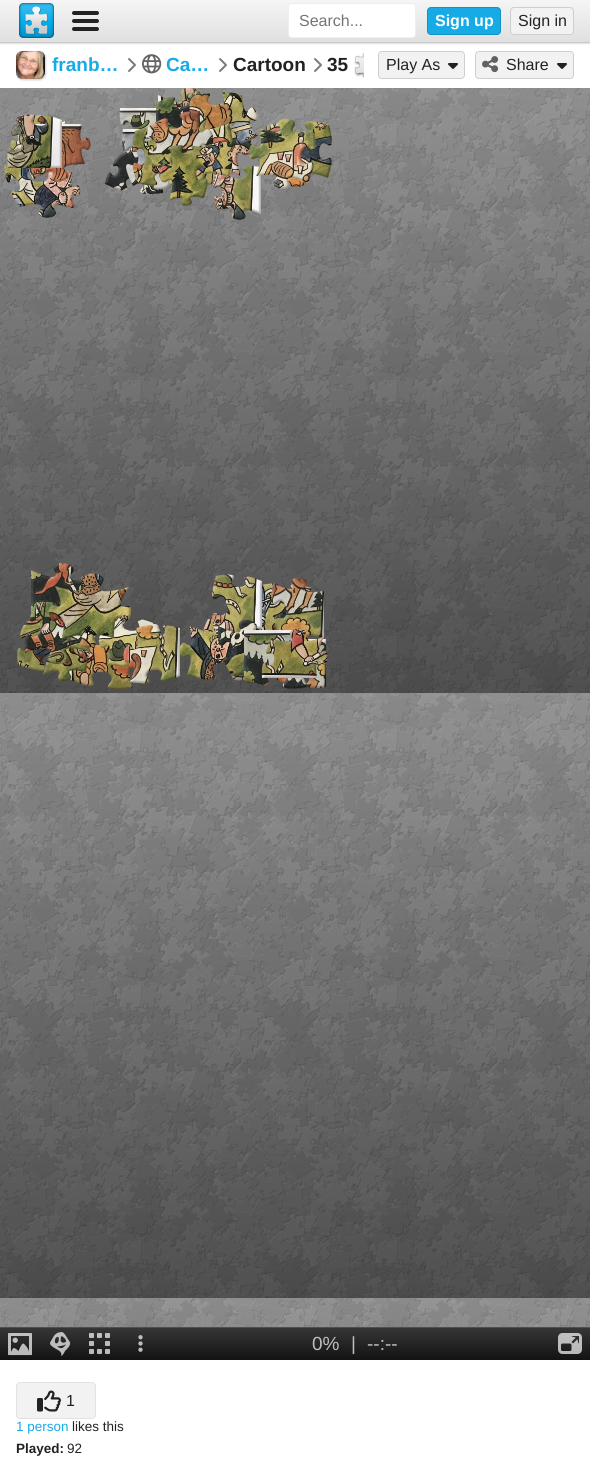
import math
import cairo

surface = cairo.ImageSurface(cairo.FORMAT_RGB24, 590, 1480)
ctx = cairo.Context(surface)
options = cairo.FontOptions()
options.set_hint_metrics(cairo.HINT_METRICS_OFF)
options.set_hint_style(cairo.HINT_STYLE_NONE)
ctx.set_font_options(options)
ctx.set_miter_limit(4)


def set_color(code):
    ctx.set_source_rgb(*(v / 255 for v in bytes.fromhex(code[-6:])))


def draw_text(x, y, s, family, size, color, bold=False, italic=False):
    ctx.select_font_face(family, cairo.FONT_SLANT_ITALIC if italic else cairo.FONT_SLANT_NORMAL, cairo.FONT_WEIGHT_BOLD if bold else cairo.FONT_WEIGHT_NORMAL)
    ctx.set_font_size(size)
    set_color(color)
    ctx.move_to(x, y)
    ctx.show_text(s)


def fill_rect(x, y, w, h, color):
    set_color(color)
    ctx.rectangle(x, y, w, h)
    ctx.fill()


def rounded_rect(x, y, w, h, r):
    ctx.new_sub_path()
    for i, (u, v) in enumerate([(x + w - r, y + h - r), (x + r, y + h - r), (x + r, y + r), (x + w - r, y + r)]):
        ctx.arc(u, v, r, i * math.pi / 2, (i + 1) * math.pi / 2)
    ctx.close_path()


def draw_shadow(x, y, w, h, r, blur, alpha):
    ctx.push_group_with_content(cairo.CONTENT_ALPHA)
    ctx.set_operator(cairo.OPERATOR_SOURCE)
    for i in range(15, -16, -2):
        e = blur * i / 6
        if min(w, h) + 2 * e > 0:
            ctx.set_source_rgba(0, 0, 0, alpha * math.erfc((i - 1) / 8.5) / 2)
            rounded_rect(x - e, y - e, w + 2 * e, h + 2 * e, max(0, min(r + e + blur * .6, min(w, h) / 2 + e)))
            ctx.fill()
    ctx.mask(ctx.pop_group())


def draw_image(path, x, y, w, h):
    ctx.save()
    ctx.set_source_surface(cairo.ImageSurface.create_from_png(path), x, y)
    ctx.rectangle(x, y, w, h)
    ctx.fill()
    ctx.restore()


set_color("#ffffff")
ctx.paint()
set_color("#000000")
draw_shadow(0, 1, 590, 42, 0, 1, 0.3)
gradient = cairo.LinearGradient(295, 0, 295, 42)
gradient.add_color_stop_rgba(0, 0.961, 0.961, 0.961, 1)
gradient.add_color_stop_rgba(1, 0.878, 0.878, 0.878, 1)
ctx.set_source(gradient)
ctx.rectangle(0, 0, 590, 42)
ctx.fill()
draw_image("assets/img1.png", 19, 3, 35, 35)
set_color("#222222")
rounded_rect(72, 11, 27, 4, 2)
ctx.fill()
rounded_rect(72, 19, 27, 4, 2)
ctx.fill()
rounded_rect(72, 27, 27, 4, 2)
ctx.fill()
set_color("#ffffff")
rounded_rect(288, 3, 128, 35, 4)
ctx.fill()
rounded_rect(288.5, 3.5, 127, 34, 3.5)
ctx.set_source_rgba(0, 0, 0, 0.07)
ctx.set_line_width(1)
ctx.stroke()
draw_text(299, 26, "Search...", "Liberation Sans", 16, "#757575")
set_color("#17abe6")
rounded_rect(427, 7, 74, 28, 4)
ctx.fill()
rounded_rect(427.5, 7.5, 73, 27, 3.5)
ctx.set_source_rgba(0, 0, 0, 0.15)
ctx.stroke()
draw_text(435, 26, "Sign up", "Liberation Sans", 16, "#ffffff", bold=True)
set_color("#f2f2f2")
rounded_rect(510, 7, 64, 28, 4)
ctx.fill()
rounded_rect(510.5, 7.5, 63, 27, 3.5)
ctx.set_source_rgba(0, 0, 0, 0.15)
ctx.stroke()
draw_text(518, 26, "Sign in", "Liberation Sans", 16, "#222222")
ctx.save()
ctx.set_fill_rule(cairo.FILL_RULE_EVEN_ODD)
ctx.new_path()
ctx.move_to(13, 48)
ctx.line_to(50, 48)
ctx.line_to(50, 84)
ctx.line_to(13, 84)
ctx.close_path()
ctx.move_to(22, 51)
ctx.line_to(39, 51)
ctx.curve_to(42.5, 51, 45, 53.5, 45, 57)
ctx.line_to(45, 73)
ctx.curve_to(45, 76.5, 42.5, 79, 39, 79)
ctx.line_to(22, 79)
ctx.curve_to(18.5, 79, 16, 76.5, 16, 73)
ctx.line_to(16, 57)
ctx.curve_to(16, 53.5, 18.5, 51, 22, 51)
ctx.close_path()
ctx.clip()
set_color("#000000")
draw_shadow(17, 52, 29, 28, 6, 1, 0.2)
ctx.restore()
draw_image("assets/img2.png", 16, 51, 29, 28)
rounded_rect(16.5, 51.5, 28, 27, 5.5)
ctx.set_source_rgba(0, 0, 0, 0.07)
ctx.stroke()
draw_text(52, 71, "franb…", "Liberation Sans", 19, "#17abe6", bold=True)
draw_image("assets/img3.png", 128, 58, 8, 14)
draw_image("assets/img4.png", 142, 54, 20, 20)
draw_text(166, 71, "Ca…", "Liberation Sans", 19, "#17abe6", bold=True)
draw_image("assets/img3.png", 219, 58, 8, 14)
draw_text(233, 71, "Cartoon", "Liberation Sans", 19, "#222222", bold=True)
draw_image("assets/img3.png", 314, 58, 8, 14)
draw_text(327, 71, "35", "Liberation Sans", 19, "#222222", bold=True)
draw_image("assets/img5.png", 354, 53, 10, 25)
set_color("#f2f2f2")
rounded_rect(378, 51, 87, 28, 4)
ctx.fill()
rounded_rect(378.5, 51.5, 86, 27, 3.5)
ctx.set_source_rgba(0, 0, 0, 0.15)
ctx.stroke()
draw_text(386, 70, "Play As", "Liberation Sans", 16, "#222222")
draw_image("assets/img6.png", 448, 63, 10, 6)
set_color("#f2f2f2")
rounded_rect(475, 51, 99, 28, 4)
ctx.fill()
rounded_rect(475.5, 51.5, 98, 27, 3.5)
ctx.set_source_rgba(0, 0, 0, 0.15)
ctx.stroke()
draw_image("assets/img7.png", 482, 56, 17, 17)
draw_text(506, 70, "Share", "Liberation Sans", 16, "#222222")
draw_image("assets/img6.png", 557, 63, 10, 6)
draw_image("assets/img8.png", 0, 88, 590, 1239)
draw_image("assets/img9.png", 158, 88, 62, 20)
draw_image("assets/img25.png", 105, 150, 58, 45)
draw_image("assets/img10.png", 119, 108, 37, 44)
draw_image("assets/img11.png", 156, 93, 50, 36)
draw_image("assets/img23.png", 204, 132, 48, 53)
draw_image("assets/img12.png", 189, 92, 69, 57)
draw_image("assets/img24.png", 4, 165, 77, 53)
draw_image("assets/img15.png", 10, 115, 55, 60)
draw_image("assets/img18.png", 28, 124, 63, 58)
draw_image("assets/img13.png", 7, 114, 55, 54)
draw_image("assets/img26.png", 213, 166, 48, 54)
draw_image("assets/img16.png", 196, 115, 37, 70)
draw_image("assets/img21.png", 122, 129, 48, 61)
draw_image("assets/img19.png", 132, 126, 46, 60)
draw_image("assets/img14.png", 146, 111, 68, 58)
draw_image("assets/img20.png", 266, 121, 66, 66)
draw_image("assets/img17.png", 249, 118, 67, 71)
draw_image("assets/img22.png", 159, 145, 50, 61)
draw_image("assets/img27.png", 31, 563, 53, 51)
draw_image("assets/img34.png", 17, 620, 30, 51)
draw_image("assets/img42.png", 69, 644, 67, 46)
draw_image("assets/img41.png", 34, 648, 54, 34)
draw_image("assets/img31.png", 24, 601, 72, 64)
draw_image("assets/img35.png", 98, 617, 64, 50)
draw_image("assets/img37.png", 123, 625, 57, 59)
draw_image("assets/img28.png", 49, 573, 83, 75)
draw_image("assets/img33.png", 255, 583, 57, 47)
draw_image("assets/img32.png", 203, 606, 63, 27)
draw_image("assets/img36.png", 180, 615, 66, 66)
draw_image("assets/img29.png", 212, 574, 50, 62)
draw_image("assets/img43.png", 274, 639, 52, 49)
draw_image("assets/img30.png", 271, 577, 53, 64)
draw_image("assets/img38.png", 218, 620, 39, 64)
draw_image("assets/img40.png", 244, 630, 64, 59)
draw_image("assets/img39.png", 261, 628, 67, 50)
gradient = cairo.LinearGradient(295, 1328, 295, 1360)
gradient.add_color_stop_rgba(0, 0.212, 0.212, 0.212, 1)
gradient.add_color_stop_rgba(1, 0.071, 0.071, 0.071, 1)
ctx.set_source(gradient)
ctx.rectangle(0, 1328, 590, 32)
ctx.fill()
fill_rect(0, 1327, 590, 1, "#4f4f4f")
draw_image("assets/img44.png", 8, 1333, 24, 23)
draw_image("assets/img45.png", 50, 1332, 21, 24)
draw_image("assets/img46.png", 89, 1333, 21, 21)
draw_image("assets/img47.png", 138, 1335, 5, 17)
draw_text(312, 1350, "0%", "Liberation Sans", 19, "#bebebe")
draw_text(351, 1350, "|", "Liberation Sans", 19, "#bebebe")
draw_text(367, 1350, "--:--", "Liberation Sans", 19, "#bebebe")
draw_image("assets/img48.png", 558, 1333, 24, 21)
set_color("#f2f2f2")
rounded_rect(16, 1382, 80, 37, 4)
ctx.fill()
rounded_rect(16.5, 1382.5, 79, 36, 3.5)
ctx.set_source_rgba(0, 0, 0, 0.07)
ctx.stroke()
draw_image("assets/img49.png", 37, 1390, 24, 22)
draw_text(66, 1406, "1", "Liberation Sans", 16, "#222222")
draw_text(16, 1431, "1 person", "Liberation Sans", 13.5, "#17abe6")
draw_text(72, 1431, "likes this", "Liberation Sans", 13.5, "#222222")
draw_text(16, 1453, "Played:", "Liberation Sans", 13.5, "#222222", bold=True)
draw_text(67, 1453, "92", "Liberation Sans", 13.5, "#222222")
surface.write_to_png("output.png")
